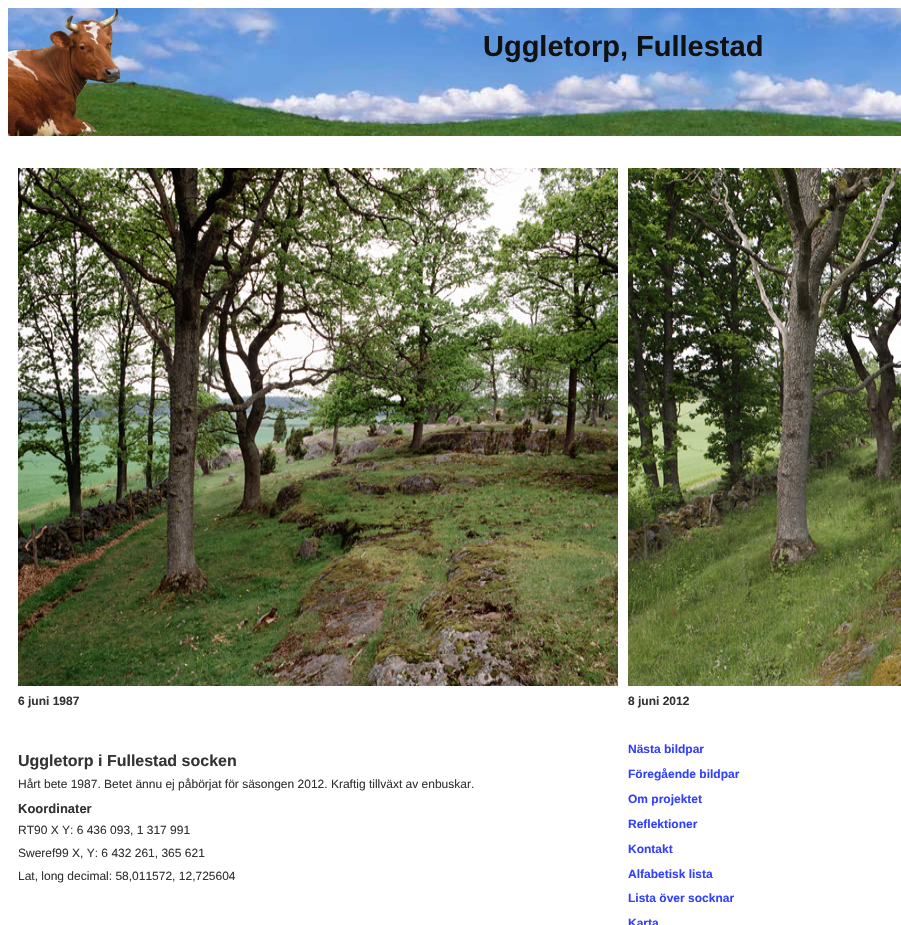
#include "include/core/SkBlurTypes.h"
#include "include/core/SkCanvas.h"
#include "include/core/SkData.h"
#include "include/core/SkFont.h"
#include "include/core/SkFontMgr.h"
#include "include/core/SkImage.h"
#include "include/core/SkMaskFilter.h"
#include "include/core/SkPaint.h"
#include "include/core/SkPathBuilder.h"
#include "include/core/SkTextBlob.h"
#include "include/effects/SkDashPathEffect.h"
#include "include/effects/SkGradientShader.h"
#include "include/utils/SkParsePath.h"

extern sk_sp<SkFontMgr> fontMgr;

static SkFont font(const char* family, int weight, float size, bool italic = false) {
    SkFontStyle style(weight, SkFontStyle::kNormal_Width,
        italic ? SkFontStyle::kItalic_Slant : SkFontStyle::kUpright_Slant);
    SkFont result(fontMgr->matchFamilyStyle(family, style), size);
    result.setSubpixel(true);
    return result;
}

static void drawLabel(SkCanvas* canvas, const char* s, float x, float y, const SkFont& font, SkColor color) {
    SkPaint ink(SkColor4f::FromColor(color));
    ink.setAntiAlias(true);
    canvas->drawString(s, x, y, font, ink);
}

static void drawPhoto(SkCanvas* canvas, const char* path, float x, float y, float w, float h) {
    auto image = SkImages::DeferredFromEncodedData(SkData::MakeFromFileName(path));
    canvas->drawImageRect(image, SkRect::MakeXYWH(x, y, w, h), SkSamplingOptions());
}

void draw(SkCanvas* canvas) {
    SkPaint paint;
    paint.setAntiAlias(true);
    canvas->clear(0xFFFFFFFF);
    drawPhoto(canvas, "assets/img1.png", 8, 8, 893, 128);
    drawPhoto(canvas, "assets/img2.png", 8, 8, 112, 128);
    SkFont font1 = font("Liberation Sans", 700, 29);
    drawLabel(canvas, "Uggletorp, Fullestad", 483, 56, font1, 0xFF111111);
    drawPhoto(canvas, "assets/img3.png", 18, 168, 600, 518);
    SkFont font2 = font("Liberation Sans", 700, 12);
    drawLabel(canvas, "6 juni 1987", 18, 705, font2, 0xFF333333);
    drawPhoto(canvas, "assets/img4.png", 628, 168, 273, 518);
    drawLabel(canvas, "8 juni 2012", 628, 705, font2, 0xFF333333);
    SkFont font3 = font("Liberation Sans", 700, 16);
    drawLabel(canvas, "Uggletorp i Fullestad socken", 18, 766, font3, 0xFF333333);
    SkFont font4 = font("Liberation Sans", 400, 12);
    drawLabel(canvas, "Hårt bete 1987. Betet ännu ej påbörjat för säsongen 2012. Kraftig tillväxt av enbuskar.", 18, 788, font4, 0xFF333333);
    SkFont font5 = font("Liberation Sans", 700, 13);
    drawLabel(canvas, "Koordinater", 18, 813, font5, 0xFF333333);
    drawLabel(canvas, "RT90 X Y: 6 436 093, 1 317 991", 18, 834, font4, 0xFF333333);
    drawLabel(canvas, "Sweref99 X, Y: 6 432 261, 365 621", 18, 857, font4, 0xFF333333);
    drawLabel(canvas, "Lat, long decimal: 58,011572, 12,725604", 18, 880, font4, 0xFF333333);
    drawLabel(canvas, "Nästa bildpar", 628, 753, font2, 0xFF3040FF);
    drawLabel(canvas, "Föregående bildpar", 628, 778, font2, 0xFF3040FF);
    drawLabel(canvas, "Om projektet", 628, 803, font2, 0xFF3040FF);
    drawLabel(canvas, "Reflektioner", 628, 828, font2, 0xFF3040FF);
    drawLabel(canvas, "Kontakt", 628, 853, font2, 0xFF3040FF);
    drawLabel(canvas, "Alfabetisk lista", 628, 878, font2, 0xFF3040FF);
    drawLabel(canvas, "Lista över socknar", 628, 902, font2, 0xFF3040FF);
    drawLabel(canvas, "Karta", 628, 927, font2, 0xFF3040FF);
}
